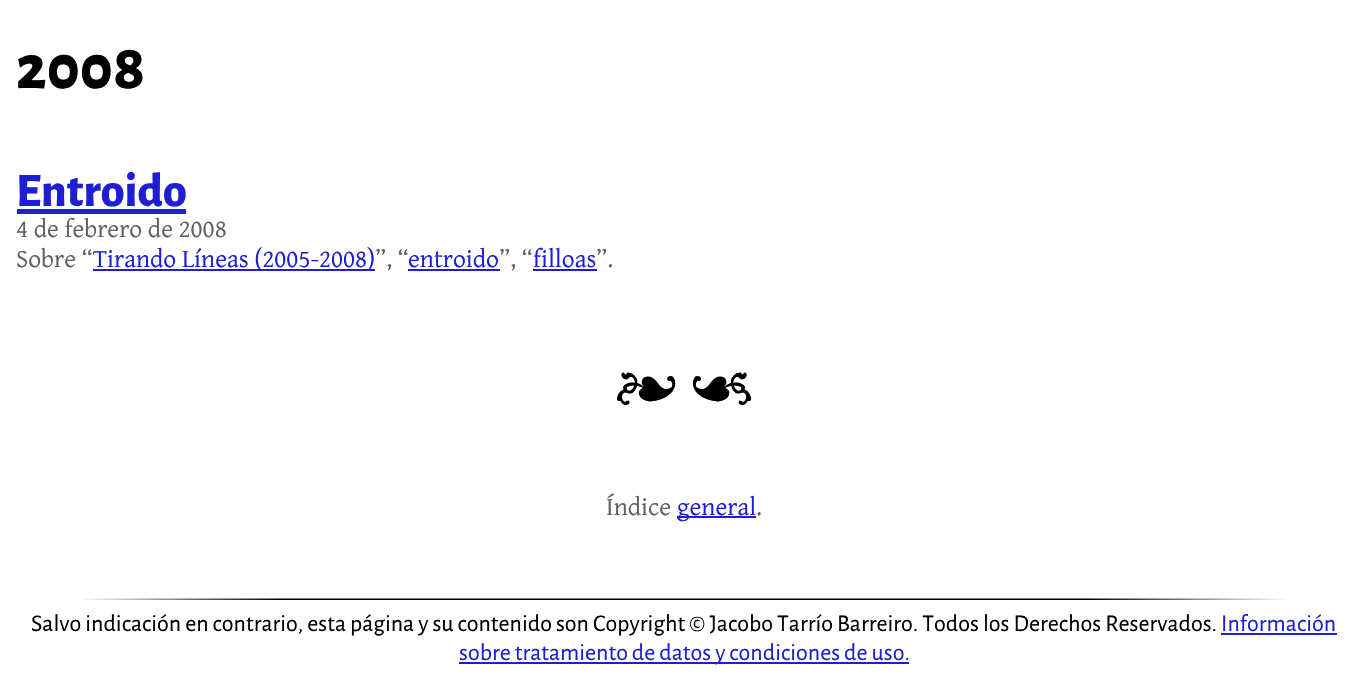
#include "include/core/SkBlurTypes.h"
#include "include/core/SkCanvas.h"
#include "include/core/SkData.h"
#include "include/core/SkFont.h"
#include "include/core/SkFontMgr.h"
#include "include/core/SkImage.h"
#include "include/core/SkMaskFilter.h"
#include "include/core/SkPaint.h"
#include "include/core/SkPathBuilder.h"
#include "include/core/SkTextBlob.h"
#include "include/effects/SkDashPathEffect.h"
#include "include/effects/SkGradientShader.h"
#include "include/utils/SkParsePath.h"

extern sk_sp<SkFontMgr> fontMgr;

static SkFont font(const char* family, int weight, float size, bool italic = false) {
    SkFontStyle style(weight, SkFontStyle::kNormal_Width,
        italic ? SkFontStyle::kItalic_Slant : SkFontStyle::kUpright_Slant);
    SkFont result(fontMgr->matchFamilyStyle(family, style), size);
    result.setSubpixel(true);
    return result;
}

static void drawLabel(SkCanvas* canvas, const char* s, float x, float y, const SkFont& font, SkColor color) {
    SkPaint ink(SkColor4f::FromColor(color));
    ink.setAntiAlias(true);
    canvas->drawString(s, x, y, font, ink);
}

static void drawTracked(SkCanvas* canvas, const char* s, float x, float y, const SkFont& font, const SkPaint& ink, float letter, float word) {
    std::vector<SkGlyphID> glyphs(font.countText(s, strlen(s), SkTextEncoding::kUTF8));
    std::vector<float> xs(glyphs.size());
    font.textToGlyphs(s, strlen(s), SkTextEncoding::kUTF8, glyphs);
    font.getXPos(glyphs, xs, x);
    float extra = 0;
    for (size_t i = 0; i < glyphs.size(); i++) {
        xs[i] += extra;
        extra += letter + word * (glyphs[i] == font.unicharToGlyph(' '));
    }
    canvas->drawTextBlob(SkTextBlob::MakeFromPosHGlyphs(glyphs, xs, y, font), 0, 0, ink);
}

static void fillRect(SkCanvas* canvas, float x, float y, float w, float h, SkColor color) {
    SkPaint ink(SkColor4f::FromColor(color));
    ink.setAntiAlias(true);
    canvas->drawRect(SkRect::MakeXYWH(x, y, w, h), ink);
}

static void drawPhoto(SkCanvas* canvas, const char* path, float x, float y, float w, float h) {
    auto image = SkImages::DeferredFromEncodedData(SkData::MakeFromFileName(path));
    canvas->drawImageRect(image, SkRect::MakeXYWH(x, y, w, h), SkSamplingOptions());
}

void draw(SkCanvas* canvas) {
    SkPaint paint;
    paint.setAntiAlias(true);
    canvas->clear(0xFFFFFFFF);
    SkFont font1 = font("Alegreya Sans", 800, 64);
    drawLabel(canvas, "2008", 16, 88, font1, 0xFF000000);
    SkFont font2 = font("Alegreya Sans", 800, 48);
    drawLabel(canvas, "Entroido", 16, 206, font2, 0xFF1E1ED2);
    fillRect(canvas, 17, 209, 169, 5, 0xFF1E1ED2);
    SkFont font3 = font("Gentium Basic", 400, 25.6f);
    drawLabel(canvas, "4 de febrero de 2008", 16, 237, font3, 0xFF606060);
    drawLabel(canvas, "Sobre “", 16, 267, font3, 0xFF606060);
    fillRect(canvas, 93, 269, 282, 2, 0xFF1E1ED2);
    drawLabel(canvas, "Tirando Líneas (2005-2008)", 93, 267, font3, 0xFF1E1ED2);
    drawLabel(canvas, "”, “", 375, 267, font3, 0xFF606060);
    drawLabel(canvas, "entroido", 408, 267, font3, 0xFF1E1ED2);
    fillRect(canvas, 408, 269, 92, 2, 0xFF1E1ED2);
    drawLabel(canvas, "”, “", 499, 267, font3, 0xFF606060);
    drawLabel(canvas, "filloas", 533, 267, font3, 0xFF1E1ED2);
    fillRect(canvas, 533, 269, 64, 2, 0xFF1E1ED2);
    drawLabel(canvas, "”.", 596, 267, font3, 0xFF606060);
    SkFont font4 = font("EB Garamond", 400, 64);
    paint.setColor(0xFF000000);
    drawTracked(canvas, "❧ ☙", 616, 397, font4, paint, 0, 3);
    drawLabel(canvas, "Índice", 606, 515, font3, 0xFF606060);
    fillRect(canvas, 677, 516, 79, 2, 0xFF1E1ED2);
    drawLabel(canvas, "general", 677, 515, font3, 0xFF1E1ED2);
    drawLabel(canvas, ".", 756, 515, font3, 0xFF606060);
    drawPhoto(canvas, "assets/img1.png", 82, 598, 1205, 2);
    SkFont font5 = font("Alegreya Sans", 400, 24);
    drawLabel(canvas, "Salvo indicación en contrario, esta página y su contenido son Copyright © Jacobo Tarrío Barreiro. Todos los Derechos Reservados.", 31, 631, font5, 0xFF000000);
    drawLabel(canvas, "Información", 1221, 631, font5, 0xFF1E1ED2);
    fillRect(canvas, 1221, 633, 116, 2, 0xFF1E1ED2);
    fillRect(canvas, 459, 662, 450, 2, 0xFF1E1ED2);
    drawLabel(canvas, "sobre tratamiento de datos y condiciones de uso.", 459, 660, font5, 0xFF1E1ED2);
}
